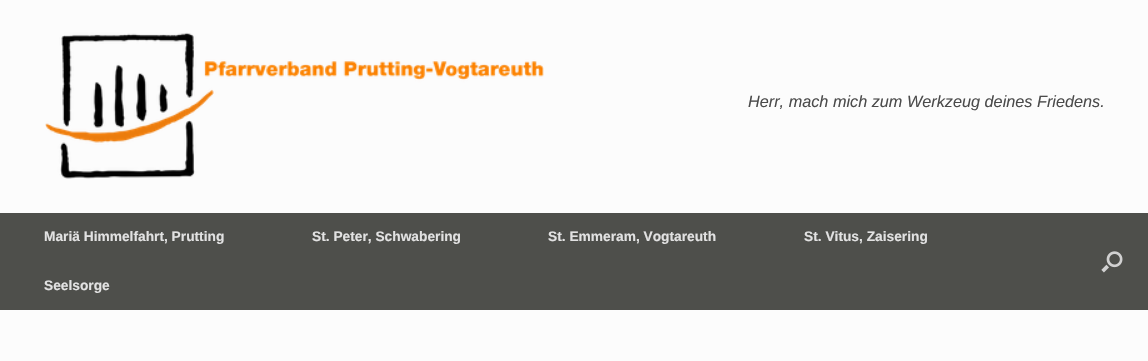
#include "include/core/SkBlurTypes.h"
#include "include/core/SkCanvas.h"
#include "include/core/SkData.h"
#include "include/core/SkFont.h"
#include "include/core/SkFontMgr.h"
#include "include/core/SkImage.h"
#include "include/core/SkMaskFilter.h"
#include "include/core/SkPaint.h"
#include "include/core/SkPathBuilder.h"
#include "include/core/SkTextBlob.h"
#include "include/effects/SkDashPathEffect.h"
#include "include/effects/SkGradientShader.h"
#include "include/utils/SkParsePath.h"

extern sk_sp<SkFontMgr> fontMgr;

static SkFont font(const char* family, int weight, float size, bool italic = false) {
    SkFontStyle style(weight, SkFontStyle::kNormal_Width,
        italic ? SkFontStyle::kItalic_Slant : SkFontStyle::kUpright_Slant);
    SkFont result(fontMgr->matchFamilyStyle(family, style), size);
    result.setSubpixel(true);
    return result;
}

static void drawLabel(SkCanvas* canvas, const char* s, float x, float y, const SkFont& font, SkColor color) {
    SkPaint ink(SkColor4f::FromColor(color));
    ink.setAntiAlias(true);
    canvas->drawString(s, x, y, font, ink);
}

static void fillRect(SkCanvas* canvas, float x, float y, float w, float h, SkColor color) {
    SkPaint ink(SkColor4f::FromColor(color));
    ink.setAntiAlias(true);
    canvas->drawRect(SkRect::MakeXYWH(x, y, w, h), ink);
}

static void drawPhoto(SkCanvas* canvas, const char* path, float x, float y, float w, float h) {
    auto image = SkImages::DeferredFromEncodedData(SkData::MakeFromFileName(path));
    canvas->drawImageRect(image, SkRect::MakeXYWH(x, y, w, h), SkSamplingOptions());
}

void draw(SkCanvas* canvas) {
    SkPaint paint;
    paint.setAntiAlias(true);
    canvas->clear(0xFFFCFCFC);
    drawPhoto(canvas, "assets/img1.png", 45, 32, 499, 147);
    SkFont font1 = font("Liberation Sans", 400, 16.25f, true);
    drawLabel(canvas, "Herr, mach mich zum Werkzeug deines Friedens.", 748, 107, font1, 0xFF4B4B4B);
    fillRect(canvas, 0, 213, 1148, 97, 0xFF4E4F4B);
    SkFont font2 = font("Liberation Sans", 700, 13.75f);
    drawLabel(canvas, "Mariä Himmelfahrt, Prutting", 44, 241, font2, 0xFFE2E2E2);
    drawLabel(canvas, "St. Peter, Schwabering", 312, 241, font2, 0xFFE2E2E2);
    drawLabel(canvas, "St. Emmeram, Vogtareuth", 548, 241, font2, 0xFFE2E2E2);
    drawLabel(canvas, "St. Vitus, Zaisering", 804, 241, font2, 0xFFE2E2E2);
    drawLabel(canvas, "Seelsorge", 44, 290, font2, 0xFFE2E2E2);
    drawPhoto(canvas, "assets/img2.png", 1101, 251, 22, 22);
}
